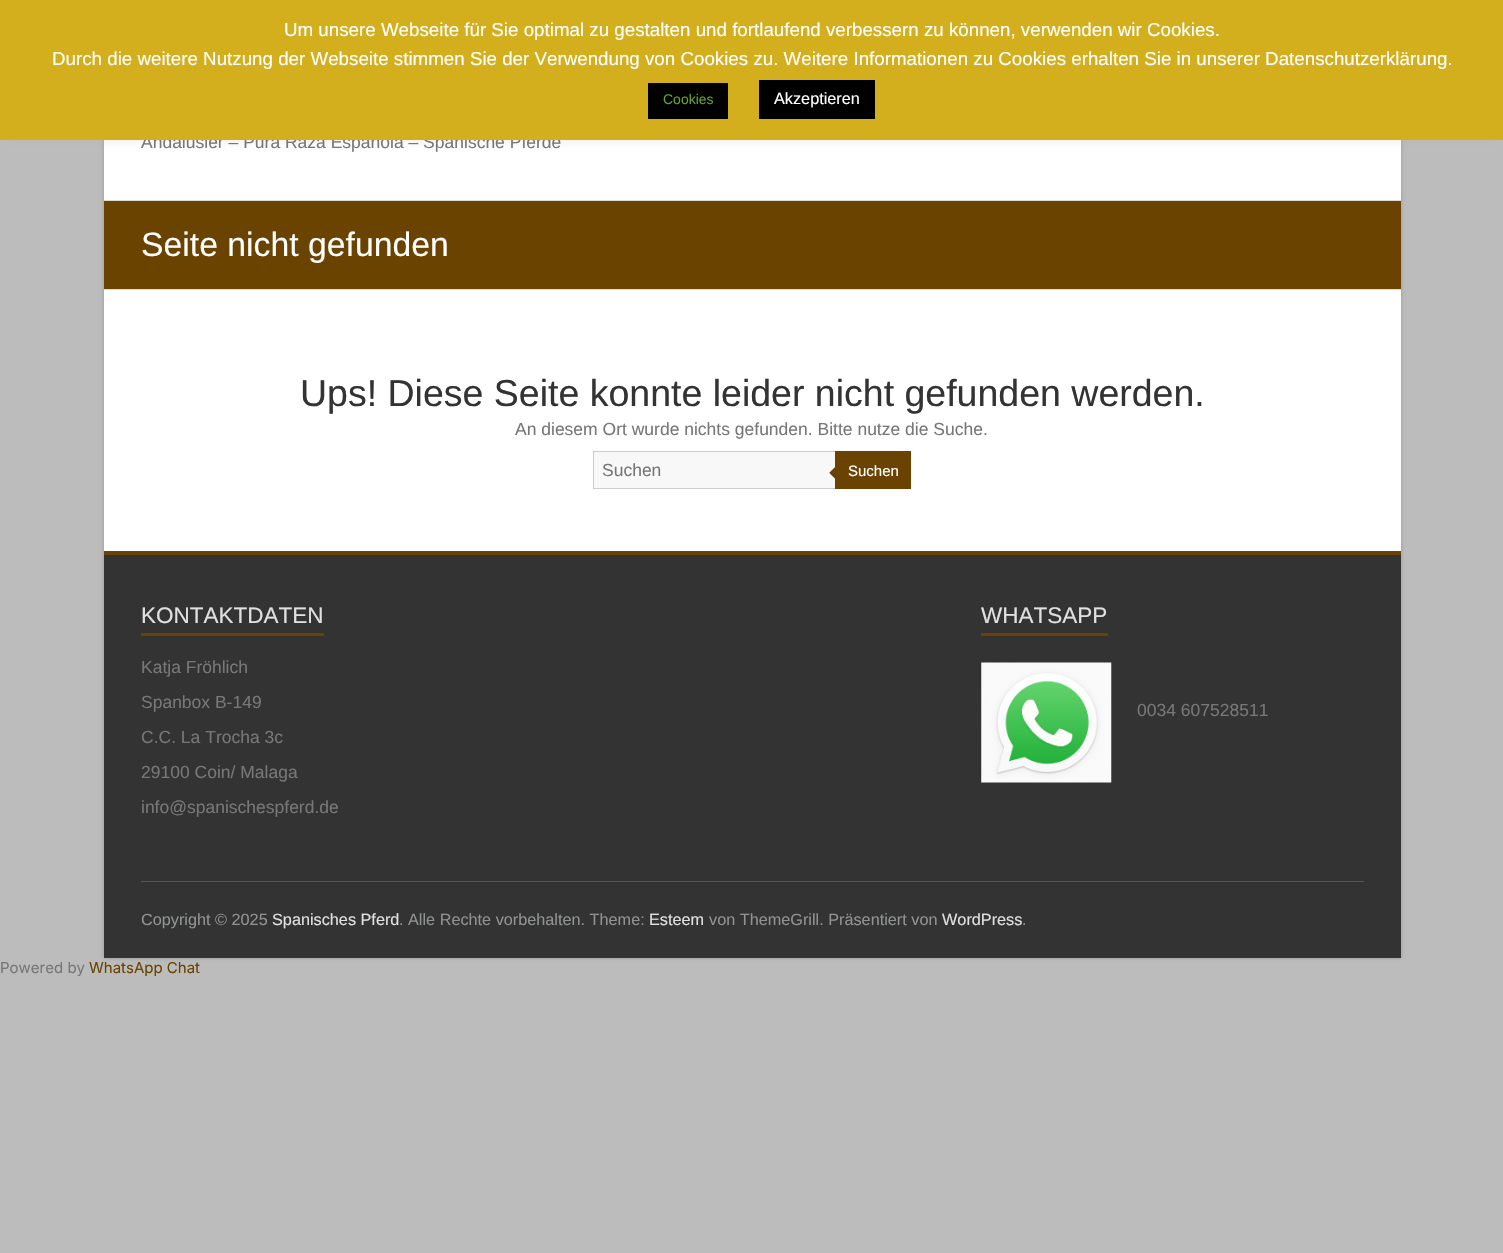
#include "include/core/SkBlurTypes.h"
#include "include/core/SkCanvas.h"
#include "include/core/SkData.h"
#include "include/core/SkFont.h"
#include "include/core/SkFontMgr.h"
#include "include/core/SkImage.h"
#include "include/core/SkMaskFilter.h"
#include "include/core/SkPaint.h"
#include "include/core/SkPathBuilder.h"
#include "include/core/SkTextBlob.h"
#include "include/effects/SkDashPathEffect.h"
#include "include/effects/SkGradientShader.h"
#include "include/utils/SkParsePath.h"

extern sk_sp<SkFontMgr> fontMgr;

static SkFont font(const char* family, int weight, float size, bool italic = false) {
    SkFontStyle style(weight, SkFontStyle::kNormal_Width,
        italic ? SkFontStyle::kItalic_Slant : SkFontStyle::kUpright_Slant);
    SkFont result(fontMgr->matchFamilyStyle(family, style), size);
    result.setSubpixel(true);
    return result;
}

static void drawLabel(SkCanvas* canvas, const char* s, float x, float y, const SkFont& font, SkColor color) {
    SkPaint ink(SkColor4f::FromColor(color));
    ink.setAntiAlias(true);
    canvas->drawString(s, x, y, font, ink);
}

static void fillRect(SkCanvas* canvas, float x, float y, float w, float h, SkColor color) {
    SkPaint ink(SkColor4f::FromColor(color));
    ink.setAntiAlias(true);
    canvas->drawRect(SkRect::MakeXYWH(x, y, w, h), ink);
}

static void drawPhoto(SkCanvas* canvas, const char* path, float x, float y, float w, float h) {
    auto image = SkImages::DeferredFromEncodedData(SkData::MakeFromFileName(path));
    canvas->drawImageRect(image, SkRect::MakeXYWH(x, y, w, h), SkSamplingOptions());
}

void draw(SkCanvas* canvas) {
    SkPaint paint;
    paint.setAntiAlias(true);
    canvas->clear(0xFFBCBCBC);
    paint.setColor(0x33000000);
    paint.setMaskFilter(SkMaskFilter::MakeBlur(kNormal_SkBlurStyle, 2));
    canvas->drawRect(SkRect::MakeXYWH(104, 50, 1297, 908), paint);
    paint.setMaskFilter(nullptr);
    fillRect(canvas, 104, 140, 1297, 411, 0xFFFFFFFF);
    paint.setColor(0x4DACABAB);
    paint.setMaskFilter(SkMaskFilter::MakeBlur(kNormal_SkBlurStyle, 6));
    canvas->drawRect(SkRect::MakeXYWH(0, -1, 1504, 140), paint);
    paint.setMaskFilter(nullptr);
    SkFont font1 = font("Liberation Sans", 400, 17.5f);
    drawLabel(canvas, "Andalusier – Pura Raza Española – Spanische Pferde", 141, 148, font1, 0xFF777777);
    fillRect(canvas, 0, 0, 1503, 140, 0xFFD3AF1D);
    SkFont font2 = font("Liberation Sans", 400, 18.75f);
    drawLabel(canvas, "Um unsere Webseite für Sie optimal zu gestalten und fortlaufend verbessern zu können, verwenden wir Cookies.", 284, 36, font2, 0xFFFFFFFF);
    drawLabel(canvas, "Durch die weitere Nutzung der Webseite stimmen Sie der Verwendung von Cookies zu. Weitere Informationen zu Cookies erhalten Sie in unserer Datenschutzerklärung.", 52, 65, font2, 0xFFFFFFFF);
    fillRect(canvas, 648, 83, 80, 36, 0xFF000000);
    SkFont font3 = font("Liberation Sans", 400, 14);
    drawLabel(canvas, "Cookies", 663, 104, font3, 0xFF62A329);
    fillRect(canvas, 759, 80, 116, 39, 0xFF000000);
    SkFont font4 = font("Liberation Sans", 400, 16.25f);
    drawLabel(canvas, "Akzeptieren", 774, 104, font4, 0xFFFFFFFF);
    fillRect(canvas, 104, 201, 1297, 88, 0xFF6B4300);
    fillRect(canvas, 104, 200, 1297, 1, 0xFFE1D9CC);
    fillRect(canvas, 104, 289, 1297, 1, 0xFFE1D9CC);
    SkFont font5 = font("Liberation Sans", 400, 33.75f);
    drawLabel(canvas, "Seite nicht gefunden", 141, 256, font5, 0xFFFFFFFF);
    SkFont font6 = font("Liberation Sans", 400, 37.5f);
    drawLabel(canvas, "Ups! Diese Seite konnte leider nicht gefunden werden.", 300, 406, font6, 0xFF333333);
    drawLabel(canvas, "An diesem Ort wurde nichts gefunden. Bitte nutze die Suche.", 515, 435, font1, 0xFF777777);
    paint.setColor(0xFFF8F8F8);
    canvas->drawRect(SkRect::MakeXYWH(593.5f, 451.5f, 242, 37), paint);
    paint.setStroke(true);
    paint.setStrokeWidth(1);
    paint.setColor(0xFFCCCCCC);
    canvas->drawRect(SkRect::MakeXYWH(593.5f, 451.5f, 242, 37), paint);
    drawLabel(canvas, "Suchen", 602, 476, font1, 0xFF777777);
    fillRect(canvas, 835, 451, 76, 38, 0xFF6B4300);
    drawPhoto(canvas, "assets/img1.png", 829, 467, 6, 12);
    SkFont font7 = font("Liberation Sans", 400, 15);
    drawLabel(canvas, "Suchen", 848, 476, font7, 0xFFFFFFFF);
    fillRect(canvas, 104, 555, 1297, 403, 0xFF333333);
    fillRect(canvas, 104, 551, 1297, 4, 0xFF6B4300);
    SkFont font8 = font("Liberation Sans", 400, 22.5f);
    drawLabel(canvas, "KONTAKTDATEN", 141, 623, font8, 0xFFE0E0E0);
    fillRect(canvas, 141, 633, 183, 3, 0xFF6B4300);
    drawLabel(canvas, "Katja Fröhlich", 141, 673, font1, 0xFF777777);
    drawLabel(canvas, "Spanbox B-149", 141, 708, font1, 0xFF777777);
    drawLabel(canvas, "C.C. La Trocha 3c", 141, 743, font1, 0xFF777777);
    drawLabel(canvas, "29100 Coin/ Malaga", 141, 778, font1, 0xFF777777);
    drawLabel(canvas, "info@spanischespferd.de", 141, 813, font1, 0xFF777777);
    drawLabel(canvas, "WHATSAPP", 981, 623, font8, 0xFFE0E0E0);
    fillRect(canvas, 981, 633, 127, 3, 0xFF6B4300);
    drawPhoto(canvas, "assets/img2.png", 981, 662, 131, 121);
    drawLabel(canvas, "0034 607528511", 1137, 716, font1, 0xFF777777);
    fillRect(canvas, 141, 881, 1223, 1, 0xFF52585B);
    drawLabel(canvas, "Copyright © 2025", 141, 925, font4, 0xFF909294);
    drawLabel(canvas, "Spanisches Pferd", 272, 925, font4, 0xFFE0E0E0);
    drawLabel(canvas, ". Alle Rechte vorbehalten. Theme:", 399, 925, font4, 0xFF909294);
    drawLabel(canvas, "Esteem", 649, 925, font4, 0xFFE0E0E0);
    drawLabel(canvas, "von ThemeGrill. Präsentiert von", 709, 925, font4, 0xFF909294);
    drawLabel(canvas, "WordPress", 942, 925, font4, 0xFFE0E0E0);
    drawLabel(canvas, ".", 1022, 925, font4, 0xFF909294);
    SkFont font9 = font("Inter", 400, 15);
    drawLabel(canvas, "Powered by", 0, 973, font9, 0xFF777777);
    drawLabel(canvas, "WhatsApp Chat", 89, 973, font9, 0xFF6B4300);
}
